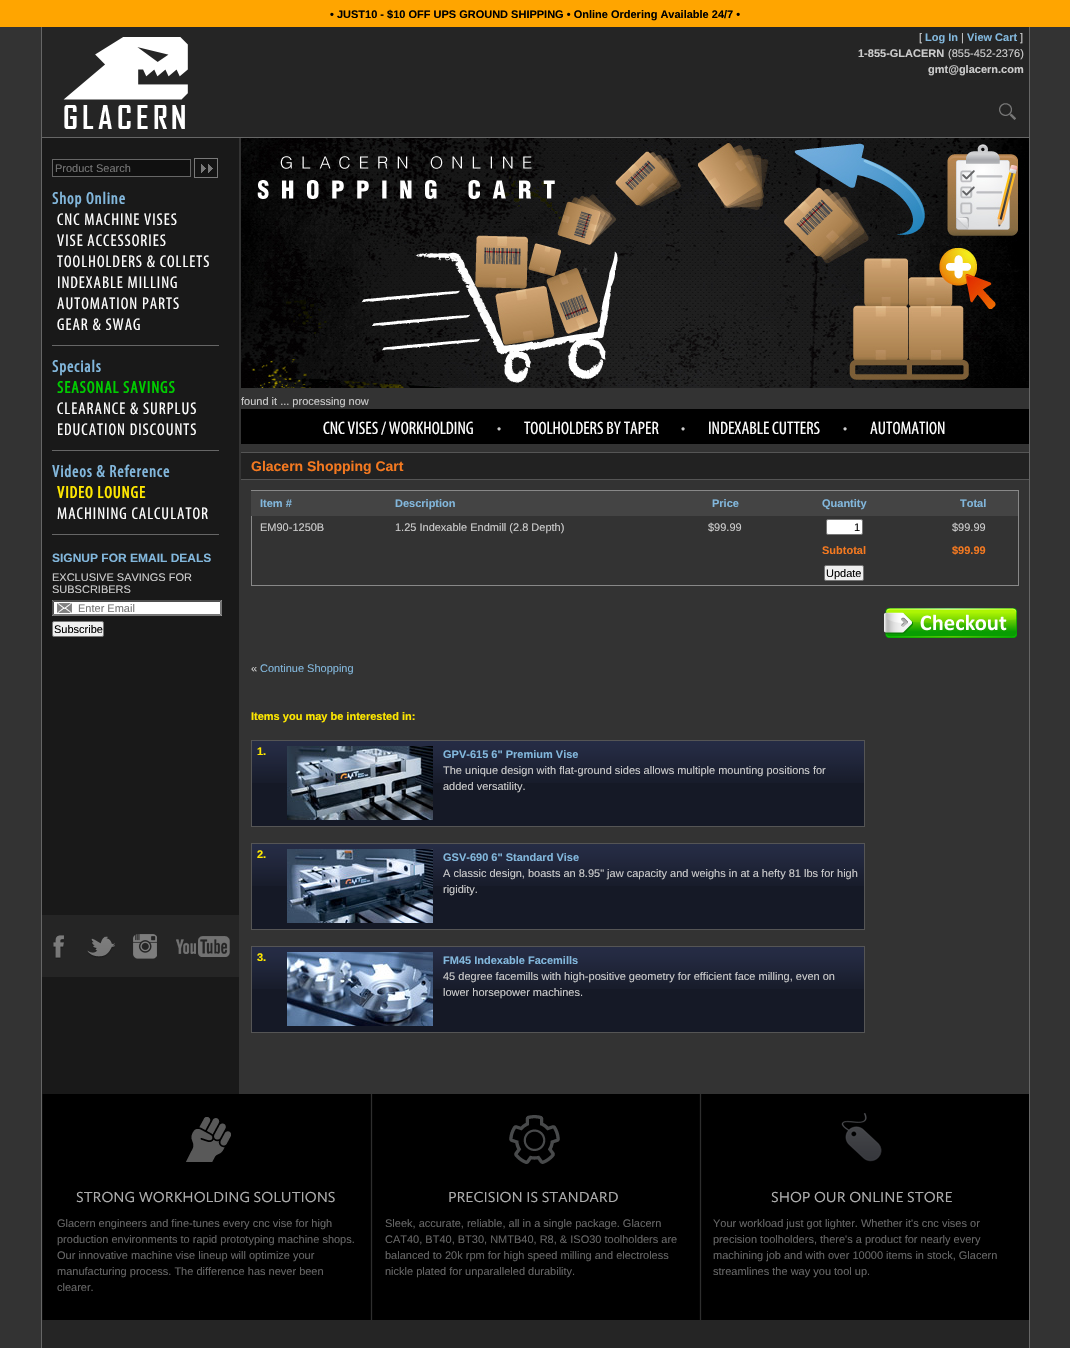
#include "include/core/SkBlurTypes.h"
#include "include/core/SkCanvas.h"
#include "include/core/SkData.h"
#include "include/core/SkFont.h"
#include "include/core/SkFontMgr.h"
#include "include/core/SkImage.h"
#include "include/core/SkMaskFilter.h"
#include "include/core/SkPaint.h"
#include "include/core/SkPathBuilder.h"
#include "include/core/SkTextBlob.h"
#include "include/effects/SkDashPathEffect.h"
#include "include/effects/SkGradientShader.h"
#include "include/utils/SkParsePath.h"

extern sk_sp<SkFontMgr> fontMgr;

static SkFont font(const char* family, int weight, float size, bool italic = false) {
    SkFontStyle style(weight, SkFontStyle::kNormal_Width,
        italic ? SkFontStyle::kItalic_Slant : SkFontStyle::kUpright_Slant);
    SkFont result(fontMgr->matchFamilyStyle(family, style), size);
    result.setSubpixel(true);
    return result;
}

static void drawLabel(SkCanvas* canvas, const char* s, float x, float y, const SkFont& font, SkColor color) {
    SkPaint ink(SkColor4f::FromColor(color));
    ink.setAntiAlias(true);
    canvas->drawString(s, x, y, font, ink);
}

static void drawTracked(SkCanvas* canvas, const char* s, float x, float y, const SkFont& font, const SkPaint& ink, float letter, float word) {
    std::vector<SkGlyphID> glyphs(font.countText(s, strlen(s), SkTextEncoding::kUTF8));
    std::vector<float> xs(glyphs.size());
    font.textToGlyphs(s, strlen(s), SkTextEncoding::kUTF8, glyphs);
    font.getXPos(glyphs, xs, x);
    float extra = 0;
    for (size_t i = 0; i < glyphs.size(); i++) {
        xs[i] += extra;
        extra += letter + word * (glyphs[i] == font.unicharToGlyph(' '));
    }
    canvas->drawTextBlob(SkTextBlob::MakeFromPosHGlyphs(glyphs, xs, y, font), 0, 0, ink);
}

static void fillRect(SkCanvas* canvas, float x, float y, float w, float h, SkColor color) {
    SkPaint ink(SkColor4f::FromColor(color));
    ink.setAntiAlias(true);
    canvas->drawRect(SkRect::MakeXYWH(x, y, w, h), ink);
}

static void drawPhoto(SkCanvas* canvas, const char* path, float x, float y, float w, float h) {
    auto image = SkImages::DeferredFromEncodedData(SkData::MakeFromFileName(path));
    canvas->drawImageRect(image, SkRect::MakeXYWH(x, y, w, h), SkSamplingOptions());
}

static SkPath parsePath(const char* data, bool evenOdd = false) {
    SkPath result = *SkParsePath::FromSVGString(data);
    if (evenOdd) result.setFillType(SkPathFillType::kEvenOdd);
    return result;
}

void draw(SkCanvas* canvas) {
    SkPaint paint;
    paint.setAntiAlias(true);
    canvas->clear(0xFF333333);
    fillRect(canvas, 0, 0, 1070, 27, 0xFFFFA500);
    SkFont font1 = font("Liberation Sans", 700, 11);
    drawLabel(canvas, "• JUST10 - $10 OFF UPS GROUND SHIPPING • Online Ordering Available 24/7 •", 330, 18, font1, 0xFF000000);
    fillRect(canvas, 42, 138, 197, 956, 0xFF191919);
    fillRect(canvas, 1029, 27, 1, 1321, 0xFF666666);
    fillRect(canvas, 41, 27, 1, 1321, 0xFF666666);
    fillRect(canvas, 42, 27, 987, 110, 0xFF252525);
    fillRect(canvas, 42, 137, 987, 1, 0xFF666666);
    drawPhoto(canvas, "assets/img1.png", 63, 37, 125, 92);
    SkFont font2 = font("Liberation Sans", 400, 11);
    drawLabel(canvas, "[", 919, 41, font2, 0xFFCCCCCC);
    drawLabel(canvas, "Log In", 925, 41, font1, 0xFF82B7DC);
    drawLabel(canvas, "|", 961, 41, font2, 0xFFCCCCCC);
    drawLabel(canvas, "View Cart", 967, 41, font1, 0xFF82B7DC);
    drawLabel(canvas, "]", 1020, 41, font2, 0xFFCCCCCC);
    drawLabel(canvas, "1-855-GLACERN", 858, 57, font1, 0xFFCCCCCC);
    drawLabel(canvas, "(855-452-2376)", 948, 57, font2, 0xFFCCCCCC);
    drawLabel(canvas, "gmt@glacern.com", 928, 73, font1, 0xFFCCCCCC);
    drawPhoto(canvas, "assets/img2.png", 999, 103, 17, 17);
    paint.setColor(0xFF101010);
    canvas->drawRect(SkRect::MakeXYWH(52.5f, 159.5f, 138, 17), paint);
    paint.setStroke(true);
    paint.setStrokeWidth(1);
    paint.setColor(0xFF666666);
    canvas->drawRect(SkRect::MakeXYWH(52.5f, 159.5f, 138, 17), paint);
    drawLabel(canvas, "Product Search", 55, 172, font2, 0xFF757575);
    drawPhoto(canvas, "assets/img3.png", 194, 158, 24, 20);
    fillRect(canvas, 52, 345, 167, 1, 0xFF666666);
    SkFont font3 = font("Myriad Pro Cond", 700, 17);
    paint.setStroke(false);
    paint.setColor(0xFF82B7DC);
    drawTracked(canvas, "Shop Online", 52, 204, font3, paint, 1, 0);
    SkFont font4 = font("Myriad Pro Cond", 400, 17);
    paint.setColor(0xFFFFFFFF);
    drawTracked(canvas, "CNC MACHINE VISES", 57, 225, font4, paint, 1, 0);
    drawTracked(canvas, "VISE ACCESSORIES", 57, 246, font4, paint, 1, 0);
    drawTracked(canvas, "TOOLHOLDERS & COLLETS", 57, 267, font4, paint, 1, 0);
    drawTracked(canvas, "INDEXABLE MILLING", 57, 288, font4, paint, 1, 0);
    drawTracked(canvas, "AUTOMATION PARTS", 57, 309, font4, paint, 1, 0);
    drawTracked(canvas, "GEAR & SWAG", 57, 330, font4, paint, 1, 0);
    fillRect(canvas, 52, 450, 167, 1, 0xFF666666);
    paint.setColor(0xFF82B7DC);
    drawTracked(canvas, "Specials", 52, 372, font3, paint, 1, 0);
    paint.setColor(0xFF00CC00);
    drawTracked(canvas, "SEASONAL SAVINGS", 57, 393, font3, paint, 1, 0);
    paint.setColor(0xFFFFFFFF);
    drawTracked(canvas, "CLEARANCE & SURPLUS", 57, 414, font4, paint, 1, 0);
    drawTracked(canvas, "EDUCATION DISCOUNTS", 57, 435, font4, paint, 1, 0);
    fillRect(canvas, 52, 534, 167, 1, 0xFF666666);
    paint.setColor(0xFF82B7DC);
    drawTracked(canvas, "Videos & Reference", 52, 477, font3, paint, 1, 0);
    paint.setColor(0xFFFFE800);
    drawTracked(canvas, "VIDEO LOUNGE", 57, 498, font3, paint, 1, 0);
    paint.setColor(0xFFFFFFFF);
    drawTracked(canvas, "MACHINING CALCULATOR", 57, 519, font4, paint, 1, 0);
    SkFont font5 = font("Liberation Sans", 700, 12);
    drawLabel(canvas, "SIGNUP FOR EMAIL DEALS", 52, 562, font5, 0xFF82B7DC);
    drawLabel(canvas, "EXCLUSIVE SAVINGS FOR", 52, 581, font2, 0xFFCCCCCC);
    drawLabel(canvas, "SUBSCRIBERS", 52, 593, font2, 0xFFCCCCCC);
    fillRect(canvas, 52, 600, 170, 16, 0xFFFFFFFF);
    drawPhoto(canvas, "assets/img4.png", 57, 603, 15, 10);
    paint.setColor(0xFF4F4F4F);
    canvas->drawPath(parsePath("M52 600H222L220 602H54Z"), paint);
    paint.setColor(0xFF767676);
    canvas->drawPath(parsePath("M222 600V616L220 614V602Z"), paint);
    canvas->drawPath(parsePath("M222 616H52L54 614H220Z"), paint);
    paint.setColor(0xFF4F4F4F);
    canvas->drawPath(parsePath("M52 616V600L54 602V614Z"), paint);
    drawLabel(canvas, "Enter Email", 78, 612, font2, 0xFF757575);
    paint.setColor(0xFFEFEFEF);
    canvas->drawRoundRect(SkRect::MakeXYWH(52.5f, 621.5f, 51, 15), 1.5f, 1.5f, paint);
    paint.setStroke(true);
    paint.setColor(0xFF767676);
    canvas->drawRoundRect(SkRect::MakeXYWH(52.5f, 621.5f, 51, 15), 1.5f, 1.5f, paint);
    drawLabel(canvas, "Subscribe", 54, 633, font2, 0xFF000000);
    fillRect(canvas, 42, 915, 197, 62, 0xFF252525);
    drawPhoto(canvas, "assets/img5.png", 53, 935, 11, 24);
    drawPhoto(canvas, "assets/img6.png", 87, 936, 28, 22);
    drawPhoto(canvas, "assets/img7.png", 133, 934, 24, 25);
    drawPhoto(canvas, "assets/img8.png", 176, 936, 54, 21);
    drawPhoto(canvas, "assets/img9.png", 241, 138, 788, 250);
    drawLabel(canvas, "found it ... processing now", 241, 405, font2, 0xFFCCCCCC);
    fillRect(canvas, 241, 409, 788, 35, 0xFF000000);
    SkFont font6 = font("Myriad Pro Cond", 400, 18);
    drawLabel(canvas, "CNC VISES / WORKHOLDING", 323, 434, font6, 0xFFFFFFFF);
    SkFont font7 = font("Myriad Pro Cond", 400, 16);
    drawLabel(canvas, "•", 497, 433, font7, 0xFFCCCCCC);
    drawLabel(canvas, "TOOLHOLDERS BY TAPER", 524, 434, font6, 0xFFFFFFFF);
    drawLabel(canvas, "•", 681, 433, font7, 0xFFCCCCCC);
    drawLabel(canvas, "INDEXABLE CUTTERS", 708, 434, font6, 0xFFFFFFFF);
    drawLabel(canvas, "•", 843, 433, font7, 0xFFCCCCCC);
    drawLabel(canvas, "AUTOMATION", 870, 434, font6, 0xFFFFFFFF);
    fillRect(canvas, 241, 453, 788, 26, 0xFF222222);
    fillRect(canvas, 241, 452, 788, 1, 0xFF555555);
    fillRect(canvas, 241, 479, 788, 1, 0xFF555555);
    SkFont font8 = font("Liberation Sans", 700, 14);
    drawLabel(canvas, "Glacern Shopping Cart", 251, 471, font8, 0xFFF47920);
    fillRect(canvas, 251, 490, 768, 1, 0xFF888888);
    fillRect(canvas, 1018, 490, 1, 96, 0xFF888888);
    fillRect(canvas, 251, 585, 768, 1, 0xFF888888);
    fillRect(canvas, 251, 490, 1, 96, 0xFF888888);
    fillRect(canvas, 251, 491, 767, 25, 0xFF444444);
    drawLabel(canvas, "Item #", 260, 507, font1, 0xFF82B7DC);
    drawLabel(canvas, "Description", 395, 507, font1, 0xFF82B7DC);
    drawLabel(canvas, "Price", 712, 507, font1, 0xFF82B7DC);
    drawLabel(canvas, "Quantity", 822, 507, font1, 0xFF82B7DC);
    drawLabel(canvas, "Total", 960, 507, font1, 0xFF82B7DC);
    drawLabel(canvas, "EM90-1250B", 260, 531, font2, 0xFFCCCCCC);
    drawLabel(canvas, "1.25 Indexable Endmill (2.8 Depth)", 395, 531, font2, 0xFFCCCCCC);
    drawLabel(canvas, "$99.99", 708, 531, font2, 0xFFCCCCCC);
    paint.setStroke(false);
    paint.setColor(0xFFFFFFFF);
    canvas->drawRoundRect(SkRect::MakeXYWH(826.5f, 519.5f, 36, 15), 1.5f, 1.5f, paint);
    paint.setStroke(true);
    paint.setColor(0xFF767676);
    canvas->drawRoundRect(SkRect::MakeXYWH(826.5f, 519.5f, 36, 15), 1.5f, 1.5f, paint);
    drawLabel(canvas, "1", 854, 531, font2, 0xFF000000);
    drawLabel(canvas, "$99.99", 952, 531, font2, 0xFFCCCCCC);
    drawLabel(canvas, "Subtotal", 822, 554, font1, 0xFFF47920);
    drawLabel(canvas, "$99.99", 952, 554, font1, 0xFFF47920);
    paint.setStroke(false);
    paint.setColor(0xFFEFEFEF);
    canvas->drawRoundRect(SkRect::MakeXYWH(824.5f, 565.5f, 39, 15), 1.5f, 1.5f, paint);
    paint.setStroke(true);
    paint.setColor(0xFF767676);
    canvas->drawRoundRect(SkRect::MakeXYWH(824.5f, 565.5f, 39, 15), 1.5f, 1.5f, paint);
    drawLabel(canvas, "Update", 826, 577, font2, 0xFF000000);
    drawPhoto(canvas, "assets/img10.png", 884, 608, 133, 30);
    drawLabel(canvas, "«", 251, 672, font2, 0xFFCCCCCC);
    drawLabel(canvas, "Continue Shopping", 260, 672, font2, 0xFF82B7DC);
    drawLabel(canvas, "Items you may be interested in:", 251, 720, font1, 0xFFFFE800);
    fillRect(canvas, 251, 740, 614, 1, 0xFF555555);
    fillRect(canvas, 864, 740, 1, 87, 0xFF555555);
    fillRect(canvas, 251, 826, 614, 1, 0xFF555555);
    fillRect(canvas, 251, 740, 1, 87, 0xFF555555);
    fillRect(canvas, 252, 783, 612, 43, 0xFF151926);
    drawPhoto(canvas, "assets/img11.png", 252, 741, 30, 42);
    drawLabel(canvas, "1.", 257, 755, font1, 0xFFFFE800);
    drawPhoto(canvas, "assets/img12.png", 282, 741, 156, 42);
    drawPhoto(canvas, "assets/img13.png", 287, 746, 146, 74);
    drawPhoto(canvas, "assets/img14.png", 438, 741, 426, 42);
    drawLabel(canvas, "GPV-615 6\" Premium Vise", 443, 758, font1, 0xFF82B7DC);
    drawLabel(canvas, "The unique design with flat-ground sides allows multiple mounting positions for", 443, 774, font2, 0xFFCCCCCC);
    drawLabel(canvas, "added versatility.", 443, 790, font2, 0xFFCCCCCC);
    fillRect(canvas, 251, 843, 614, 1, 0xFF555555);
    fillRect(canvas, 864, 843, 1, 87, 0xFF555555);
    fillRect(canvas, 251, 929, 614, 1, 0xFF555555);
    fillRect(canvas, 251, 843, 1, 87, 0xFF555555);
    fillRect(canvas, 252, 886, 612, 43, 0xFF151926);
    drawPhoto(canvas, "assets/img11.png", 252, 844, 30, 42);
    drawLabel(canvas, "2.", 257, 858, font1, 0xFFFFE800);
    drawPhoto(canvas, "assets/img12.png", 282, 844, 156, 42);
    drawPhoto(canvas, "assets/img15.png", 287, 849, 146, 74);
    drawPhoto(canvas, "assets/img14.png", 438, 844, 426, 42);
    drawLabel(canvas, "GSV-690 6\" Standard Vise", 443, 861, font1, 0xFF82B7DC);
    drawLabel(canvas, "A classic design, boasts an 8.95\" jaw capacity and weighs in at a hefty 81 lbs for high", 443, 877, font2, 0xFFCCCCCC);
    drawLabel(canvas, "rigidity.", 443, 893, font2, 0xFFCCCCCC);
    fillRect(canvas, 251, 946, 614, 1, 0xFF555555);
    fillRect(canvas, 864, 946, 1, 87, 0xFF555555);
    fillRect(canvas, 251, 1032, 614, 1, 0xFF555555);
    fillRect(canvas, 251, 946, 1, 87, 0xFF555555);
    fillRect(canvas, 252, 989, 612, 43, 0xFF151926);
    drawPhoto(canvas, "assets/img11.png", 252, 947, 30, 42);
    drawLabel(canvas, "3.", 257, 961, font1, 0xFFFFE800);
    drawPhoto(canvas, "assets/img12.png", 282, 947, 156, 42);
    drawPhoto(canvas, "assets/img16.png", 287, 952, 146, 74);
    drawPhoto(canvas, "assets/img14.png", 438, 947, 426, 42);
    drawLabel(canvas, "FM45 Indexable Facemills", 443, 964, font1, 0xFF82B7DC);
    drawLabel(canvas, "45 degree facemills with high-positive geometry for efficient face milling, even on", 443, 980, font2, 0xFFCCCCCC);
    drawLabel(canvas, "lower horsepower machines.", 443, 996, font2, 0xFFCCCCCC);
    fillRect(canvas, 702, 1094, 327, 226, 0xFF000000);
    drawPhoto(canvas, "assets/img17.png", 42, 1094, 660, 226);
    drawPhoto(canvas, "assets/img18.png", 186, 1117, 45, 45);
    SkFont font9 = font("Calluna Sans", 400, 15);
    drawLabel(canvas, "STRONG WORKHOLDING SOLUTIONS", 76, 1202, font9, 0xFFADADAD);
    drawLabel(canvas, "Glacern engineers and fine-tunes every cnc vise for high", 57, 1227, font2, 0xFF666666);
    drawLabel(canvas, "production environments to rapid prototyping machine shops.", 57, 1243, font2, 0xFF666666);
    drawLabel(canvas, "Our innovative machine vise lineup will optimize your", 57, 1259, font2, 0xFF666666);
    drawLabel(canvas, "manufacturing process. The difference has never been", 57, 1275, font2, 0xFF666666);
    drawLabel(canvas, "clearer.", 57, 1291, font2, 0xFF666666);
    drawPhoto(canvas, "assets/img19.png", 509, 1115, 51, 49);
    drawLabel(canvas, "PRECISION IS STANDARD", 448, 1202, font9, 0xFFADADAD);
    drawLabel(canvas, "Sleek, accurate, reliable, all in a single package. Glacern", 385, 1227, font2, 0xFF666666);
    drawLabel(canvas, "CAT40, BT40, BT30, NMTB40, R8, & ISO30 toolholders are", 385, 1243, font2, 0xFF666666);
    drawLabel(canvas, "balanced to 20k rpm for high speed milling and electroless", 385, 1259, font2, 0xFF666666);
    drawLabel(canvas, "nickle plated for unparalleled durability.", 385, 1275, font2, 0xFF666666);
    drawPhoto(canvas, "assets/img20.png", 841, 1113, 41, 49);
    drawLabel(canvas, "SHOP OUR ONLINE STORE", 771, 1202, font9, 0xFFADADAD);
    drawLabel(canvas, "Your workload just got lighter. Whether it's cnc vises or", 713, 1227, font2, 0xFF666666);
    drawLabel(canvas, "precision toolholders, there's a product for nearly every", 713, 1243, font2, 0xFF666666);
    drawLabel(canvas, "machining job and with over 10000 items in stock, Glacern", 713, 1259, font2, 0xFF666666);
    drawLabel(canvas, "streamlines the way you tool up.", 713, 1275, font2, 0xFF666666);
    fillRect(canvas, 42, 1320, 987, 28, 0xFF252525);
}
